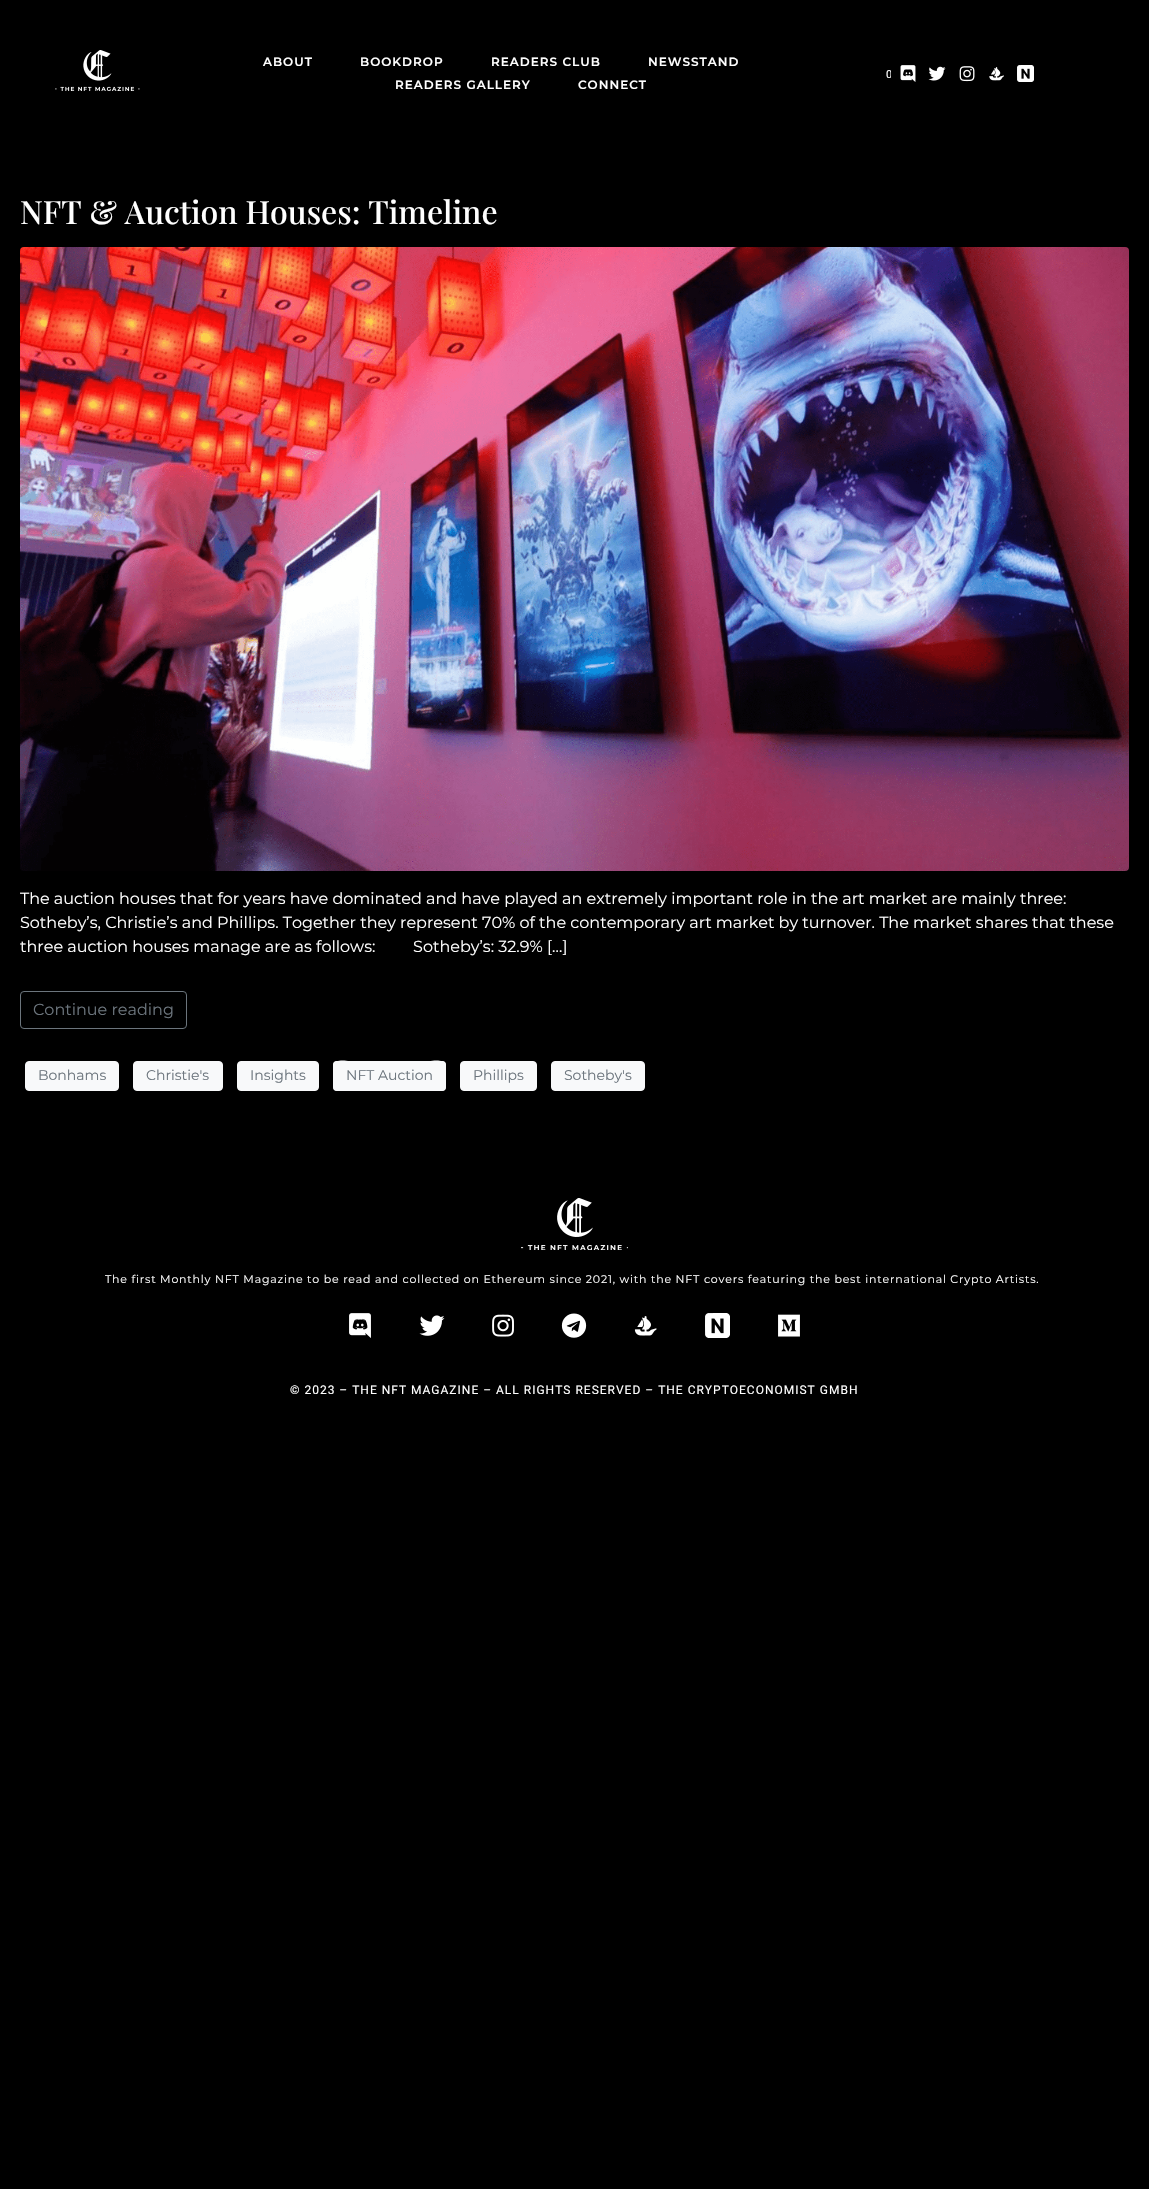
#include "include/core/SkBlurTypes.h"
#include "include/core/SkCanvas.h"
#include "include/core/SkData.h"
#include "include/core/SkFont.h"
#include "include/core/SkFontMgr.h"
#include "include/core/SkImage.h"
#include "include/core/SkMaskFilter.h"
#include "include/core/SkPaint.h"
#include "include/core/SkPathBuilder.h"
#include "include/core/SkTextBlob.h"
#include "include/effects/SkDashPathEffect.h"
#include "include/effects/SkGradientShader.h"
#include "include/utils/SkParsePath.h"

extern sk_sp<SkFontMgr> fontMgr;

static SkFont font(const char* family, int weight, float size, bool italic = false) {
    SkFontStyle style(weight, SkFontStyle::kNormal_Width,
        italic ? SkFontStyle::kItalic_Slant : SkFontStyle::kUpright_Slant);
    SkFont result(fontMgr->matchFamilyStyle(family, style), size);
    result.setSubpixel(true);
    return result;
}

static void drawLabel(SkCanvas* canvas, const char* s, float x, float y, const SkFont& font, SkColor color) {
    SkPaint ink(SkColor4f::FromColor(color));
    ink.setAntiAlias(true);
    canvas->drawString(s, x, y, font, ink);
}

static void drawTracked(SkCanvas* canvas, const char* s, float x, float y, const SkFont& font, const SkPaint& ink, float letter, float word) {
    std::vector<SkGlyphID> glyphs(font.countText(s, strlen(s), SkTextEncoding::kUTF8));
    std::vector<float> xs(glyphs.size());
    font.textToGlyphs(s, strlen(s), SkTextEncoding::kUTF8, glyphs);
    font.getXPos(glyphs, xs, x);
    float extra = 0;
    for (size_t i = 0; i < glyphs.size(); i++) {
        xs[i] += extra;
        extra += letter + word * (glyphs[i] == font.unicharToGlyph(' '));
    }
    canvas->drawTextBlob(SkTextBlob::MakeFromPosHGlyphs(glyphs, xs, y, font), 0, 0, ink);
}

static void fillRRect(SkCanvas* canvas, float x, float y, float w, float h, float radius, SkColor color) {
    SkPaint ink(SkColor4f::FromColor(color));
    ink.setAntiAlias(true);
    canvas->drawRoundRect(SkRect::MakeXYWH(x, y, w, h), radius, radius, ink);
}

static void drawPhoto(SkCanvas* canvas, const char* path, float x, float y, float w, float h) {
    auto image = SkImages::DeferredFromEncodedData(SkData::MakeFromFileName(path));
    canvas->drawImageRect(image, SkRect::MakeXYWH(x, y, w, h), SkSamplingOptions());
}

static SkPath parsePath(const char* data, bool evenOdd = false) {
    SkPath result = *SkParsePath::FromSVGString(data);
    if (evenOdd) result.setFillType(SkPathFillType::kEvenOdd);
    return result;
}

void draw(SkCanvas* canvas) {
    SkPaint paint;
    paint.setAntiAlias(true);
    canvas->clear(0xFF000000);
    drawPhoto(canvas, "assets/img1.png", 55, 50, 85, 41);
    SkFont font1 = font("Montserrat", 600, 12);
    paint.setColor(0xFFFFFFFF);
    drawTracked(canvas, "ABOUT", 263, 66, font1, paint, 1, 0);
    drawTracked(canvas, "BOOKDROP", 360, 66, font1, paint, 1, 0);
    drawTracked(canvas, "READERS CLUB", 491, 66, font1, paint, 1, 0);
    drawTracked(canvas, "NEWSSTAND", 648, 66, font1, paint, 1, 0);
    drawTracked(canvas, "READERS GALLERY", 395, 89, font1, paint, 1, 0);
    drawTracked(canvas, "CONNECT", 578, 89, font1, paint, 1, 0);
    SkFont font2 = font("Roboto", 400, 11);
    drawLabel(canvas, "0", 886, 78, font2, 0xFFFFFFFF);
    fillRRect(canvas, 891, 56, 34, 34, 3, 0xFF000000);
    drawPhoto(canvas, "assets/img2.png", 900, 65, 16, 17);
    drawPhoto(canvas, "assets/img3.png", 928, 66, 18, 15);
    drawPhoto(canvas, "assets/img4.png", 959, 66, 16, 16);
    drawPhoto(canvas, "assets/img5.png", 989, 67, 15, 14);
    drawPhoto(canvas, "assets/img6.png", 1017, 65, 17, 17);
    SkFont font3 = font("Playfair Display", 500, 32);
    drawLabel(canvas, "NFT & Auction Houses: Timeline", 20, 224, font3, 0xFFFFFFFF);
    drawPhoto(canvas, "assets/img7.png", 20, 247, 1109, 624);
    SkFont font4 = font("Montserrat", 400, 16);
    drawLabel(canvas, "The auction houses that for years have dominated and have played an extremely important role in the art market are mainly three:", 20, 904, font4, 0xFFFFFFFF);
    drawLabel(canvas, "Sotheby’s, Christie’s and Phillips. Together they represent 70% of the contemporary art market by turnover. The market shares that these", 20, 928, font4, 0xFFFFFFFF);
    drawLabel(canvas, "three auction houses manage are as follows:         Sotheby’s: 32.9% […]", 20, 952, font4, 0xFFFFFFFF);
    paint.setStroke(true);
    paint.setStrokeWidth(1);
    paint.setColor(0xFF6C757D);
    canvas->drawRoundRect(SkRect::MakeXYWH(20.5f, 991.5f, 166, 37), 3.5f, 3.5f, paint);
    drawLabel(canvas, "Continue reading", 33, 1015, font4, 0xFF6C757D);
    paint.setStroke(false);
    paint.setColor(0xFFF8F9FA);
    canvas->drawRoundRect(SkRect::MakeXYWH(25.5f, 1061.5f, 93, 29), 3.5f, 3.5f, paint);
    paint.setStroke(true);
    canvas->drawRoundRect(SkRect::MakeXYWH(25.5f, 1061.5f, 93, 29), 3.5f, 3.5f, paint);
    SkFont font5 = font("Montserrat", 400, 14);
    drawLabel(canvas, "Bonhams", 38, 1080, font5, 0xFF6C757D);
    paint.setStroke(false);
    canvas->drawRoundRect(SkRect::MakeXYWH(133.5f, 1061.5f, 89, 29), 3.5f, 3.5f, paint);
    paint.setStroke(true);
    canvas->drawRoundRect(SkRect::MakeXYWH(133.5f, 1061.5f, 89, 29), 3.5f, 3.5f, paint);
    drawLabel(canvas, "Christie's", 146, 1080, font5, 0xFF6C757D);
    paint.setStroke(false);
    canvas->drawRoundRect(SkRect::MakeXYWH(237.5f, 1061.5f, 81, 29), 3.5f, 3.5f, paint);
    paint.setStroke(true);
    canvas->drawRoundRect(SkRect::MakeXYWH(237.5f, 1061.5f, 81, 29), 3.5f, 3.5f, paint);
    drawLabel(canvas, "Insights", 250, 1080, font5, 0xFF6C757D);
    fillRRect(canvas, 333, 1061, 113, 30, 4, 0xFFF8F9FA);
    paint.setStroke(false);
    paint.setColor(0xFFF9FAFB);
    canvas->drawPath(parsePath("M337 1063H442C444 1063 445 1064 445 1066C445 1057 427 1062 424 1062H354C352 1062 334 1057 334 1066C334 1064 335 1063 337 1063Z"), paint);
    paint.setStroke(true);
    paint.setColor(0xFFF8F9FA);
    canvas->drawRoundRect(SkRect::MakeXYWH(333.5f, 1061.5f, 112, 29), 3.5f, 3.5f, paint);
    drawLabel(canvas, "NFT Auction", 346, 1080, font5, 0xFF6C757D);
    paint.setStroke(false);
    canvas->drawRoundRect(SkRect::MakeXYWH(460.5f, 1061.5f, 76, 29), 3.5f, 3.5f, paint);
    paint.setStroke(true);
    canvas->drawRoundRect(SkRect::MakeXYWH(460.5f, 1061.5f, 76, 29), 3.5f, 3.5f, paint);
    drawLabel(canvas, "Phillips", 473, 1080, font5, 0xFF6C757D);
    paint.setStroke(false);
    canvas->drawRoundRect(SkRect::MakeXYWH(551.5f, 1061.5f, 93, 29), 3.5f, 3.5f, paint);
    paint.setStroke(true);
    canvas->drawRoundRect(SkRect::MakeXYWH(551.5f, 1061.5f, 93, 29), 3.5f, 3.5f, paint);
    drawLabel(canvas, "Sotheby's", 564, 1080, font5, 0xFF6C757D);
    drawPhoto(canvas, "assets/img8.png", 521, 1198, 107, 52);
    SkFont font6 = font("Montserrat", 400, 11);
    paint.setStroke(false);
    paint.setColor(0xFFFFFFFF);
    drawTracked(canvas, "The first Monthly NFT Magazine to be read and collected on Ethereum since 2021, with the NFT covers featuring the best international Crypto Artists.", 105, 1283, font6, paint, 0.8f, 0);
    drawPhoto(canvas, "assets/img9.png", 349, 1313, 22, 25);
    drawPhoto(canvas, "assets/img10.png", 419, 1315, 26, 21);
    drawPhoto(canvas, "assets/img11.png", 492, 1314, 22, 23);
    drawPhoto(canvas, "assets/img12.png", 561, 1313, 26, 25);
    drawPhoto(canvas, "assets/img13.png", 634, 1316, 23, 20);
    drawPhoto(canvas, "assets/img14.png", 705, 1313, 25, 25);
    drawPhoto(canvas, "assets/img15.png", 778, 1314, 22, 23);
    SkFont font7 = font("Roboto", 400, 12);
    drawTracked(canvas, "© 2023 – THE NFT MAGAZINE – ALL RIGHTS RESERVED – THE CRYPTOECONOMIST GMBH", 290, 1394, font7, paint, 1, 0);
}
